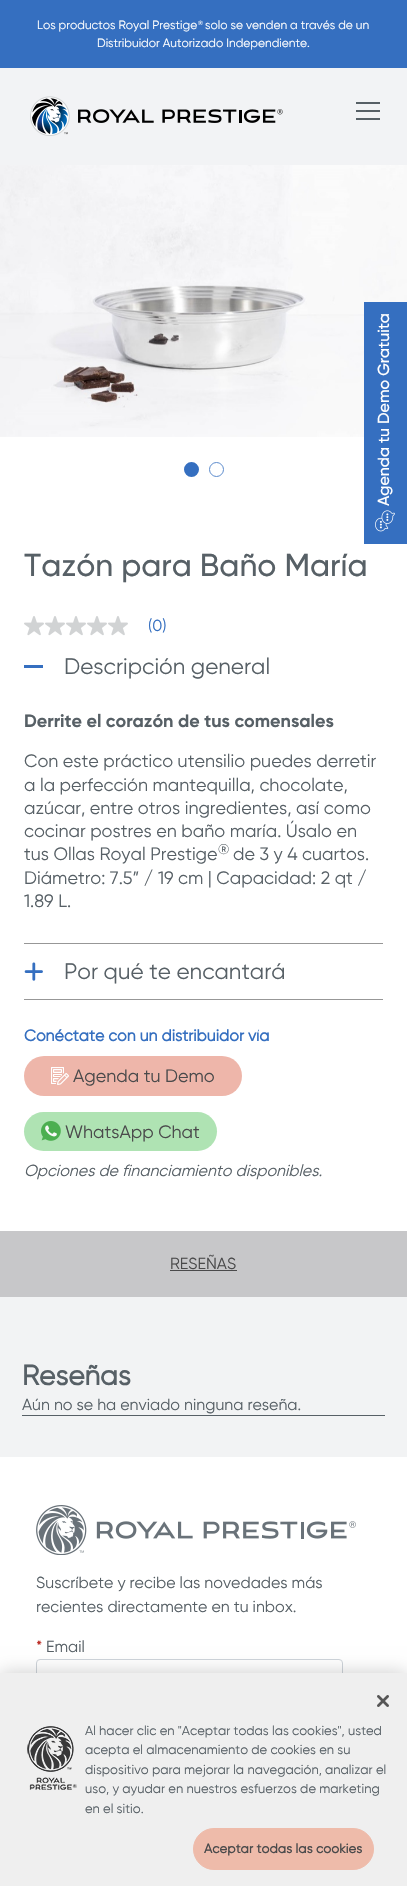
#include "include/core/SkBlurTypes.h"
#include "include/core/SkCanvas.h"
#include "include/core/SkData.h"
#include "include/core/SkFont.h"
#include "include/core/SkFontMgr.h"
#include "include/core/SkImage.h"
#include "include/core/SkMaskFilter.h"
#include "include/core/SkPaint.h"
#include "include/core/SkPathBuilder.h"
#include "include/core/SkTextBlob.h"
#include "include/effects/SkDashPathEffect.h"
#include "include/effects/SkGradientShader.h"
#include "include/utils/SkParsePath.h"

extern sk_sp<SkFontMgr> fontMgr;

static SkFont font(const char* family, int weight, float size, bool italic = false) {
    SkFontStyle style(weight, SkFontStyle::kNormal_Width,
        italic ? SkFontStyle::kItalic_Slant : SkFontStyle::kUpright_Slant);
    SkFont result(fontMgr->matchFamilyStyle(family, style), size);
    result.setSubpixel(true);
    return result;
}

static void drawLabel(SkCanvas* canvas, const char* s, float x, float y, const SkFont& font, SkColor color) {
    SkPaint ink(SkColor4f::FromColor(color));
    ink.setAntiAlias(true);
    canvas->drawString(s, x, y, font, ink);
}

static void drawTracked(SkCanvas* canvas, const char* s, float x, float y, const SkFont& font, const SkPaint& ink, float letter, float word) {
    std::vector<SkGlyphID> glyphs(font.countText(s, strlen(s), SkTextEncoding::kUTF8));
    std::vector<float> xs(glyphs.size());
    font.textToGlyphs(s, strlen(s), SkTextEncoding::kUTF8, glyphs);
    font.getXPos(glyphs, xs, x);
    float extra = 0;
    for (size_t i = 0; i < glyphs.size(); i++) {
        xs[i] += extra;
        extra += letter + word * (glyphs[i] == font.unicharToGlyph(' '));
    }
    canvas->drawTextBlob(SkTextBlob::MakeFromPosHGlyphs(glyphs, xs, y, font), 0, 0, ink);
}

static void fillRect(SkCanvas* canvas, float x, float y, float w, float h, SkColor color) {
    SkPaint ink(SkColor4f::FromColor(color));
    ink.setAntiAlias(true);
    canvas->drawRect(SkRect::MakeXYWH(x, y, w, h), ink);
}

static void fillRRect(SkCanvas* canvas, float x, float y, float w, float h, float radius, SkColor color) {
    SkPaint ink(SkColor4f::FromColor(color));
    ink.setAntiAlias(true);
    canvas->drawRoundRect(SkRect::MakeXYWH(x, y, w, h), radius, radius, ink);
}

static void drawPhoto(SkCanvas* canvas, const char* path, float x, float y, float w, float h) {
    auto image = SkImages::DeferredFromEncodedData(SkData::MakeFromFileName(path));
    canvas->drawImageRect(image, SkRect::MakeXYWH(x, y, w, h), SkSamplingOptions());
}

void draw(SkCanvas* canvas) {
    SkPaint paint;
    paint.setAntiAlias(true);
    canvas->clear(0xFFFFFFFF);
    fillRect(canvas, 0, 68, 407, 97, 0xFFF2F3F5);
    fillRect(canvas, 0, 0, 407, 68, 0xFF356FC0);
    SkFont font1 = font("Gilroy", 400, 12);
    drawLabel(canvas, "Los productos Royal Prestige", 37, 29, font1, 0xFFFFFFFF);
    SkFont font2 = font("Gilroy", 400, 6);
    drawLabel(canvas, "®", 198, 25, font2, 0xFFFFFFFF);
    drawLabel(canvas, "solo se venden a través de un", 205, 29, font1, 0xFFFFFFFF);
    drawLabel(canvas, "Distribuidor Autorizado Independiente.", 97, 47, font1, 0xFFFFFFFF);
    drawPhoto(canvas, "assets/img1.png", 30, 96, 253, 40);
    fillRect(canvas, 356, 102, 24, 2, 0xFF576066);
    fillRect(canvas, 356, 110, 24, 2, 0xFF576066);
    fillRect(canvas, 356, 118, 24, 2, 0xFF576066);
    drawPhoto(canvas, "assets/img3.png", 0, 165, 407, 272);
    fillRect(canvas, 364, 302, 43, 242, 0xFF356FC0);
    SkFont font3 = font("Gilroy", 500, 16);
    canvas->save();
    canvas->rotate(-90, 389, 506);
    drawLabel(canvas, "Agenda tu Demo Gratuita", 389, 506, font3, 0xFFFFFFFF);
    canvas->restore();
    drawPhoto(canvas, "assets/img2.png", 375, 510, 20, 22);
    paint.setColor(0xFF356FC0);
    canvas->drawCircle(191.5f, 469.5f, 6.5f, paint);
    paint.setStroke(true);
    paint.setStrokeWidth(2);
    canvas->drawCircle(191.5f, 469.5f, 6.5f, paint);
    paint.setStrokeWidth(1);
    paint.setColor(0xFF5D8CCD);
    canvas->drawCircle(216.5f, 469.5f, 7, paint);
    SkFont font4 = font("Gilroy", 500, 31.75f);
    drawLabel(canvas, "Tazón para Baño María", 24, 576, font4, 0xFF576066);
    drawPhoto(canvas, "assets/img4.png", 24, 616, 20, 20);
    drawPhoto(canvas, "assets/img4.png", 45, 616, 20, 20);
    drawPhoto(canvas, "assets/img4.png", 66, 616, 20, 20);
    drawPhoto(canvas, "assets/img4.png", 87, 616, 20, 20);
    drawPhoto(canvas, "assets/img4.png", 108, 616, 20, 20);
    SkFont font5 = font("Gilroy", 400, 16);
    drawLabel(canvas, "(0)", 148, 631, font5, 0xFF356FC0);
    fillRect(canvas, 24, 943, 359, 1, 0xFF979797);
    fillRect(canvas, 24, 665, 19, 3, 0xFF356FC0);
    SkFont font6 = font("Gilroy", 400, 22.5f);
    drawLabel(canvas, "Descripción general", 64, 674, font6, 0xFF576066);
    SkFont font7 = font("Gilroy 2", 700, 18);
    drawLabel(canvas, "Derrite el corazón de tus comensales", 24, 727, font7, 0xFF576066);
    SkFont font8 = font("Gilroy", 400, 18);
    drawLabel(canvas, "Con este práctico utensilio puedes derretir", 24, 767, font8, 0xFF576066);
    drawLabel(canvas, "a la perfección mantequilla, chocolate,", 24, 791, font8, 0xFF576066);
    drawLabel(canvas, "azúcar, entre otros ingredientes, así como", 24, 814, font8, 0xFF576066);
    drawLabel(canvas, "cocinar postres en baño maría. Úsalo en", 24, 837, font8, 0xFF576066);
    drawLabel(canvas, "tus Ollas Royal Prestige", 24, 860, font8, 0xFF576066);
    SkFont font9 = font("Gilroy", 400, 14);
    drawLabel(canvas, "®", 218, 854, font9, 0xFF576066);
    drawLabel(canvas, "de 3 y 4 cuartos.", 233, 860, font8, 0xFF576066);
    drawLabel(canvas, "Diámetro: 7.5” / 19 cm | Capacidad: 2 qt /", 24, 884, font8, 0xFF576066);
    drawLabel(canvas, "1.89 L.", 24, 907, font8, 0xFF576066);
    fillRect(canvas, 24, 999, 359, 1, 0xFF979797);
    drawPhoto(canvas, "assets/img5.png", 24, 962, 19, 19);
    drawLabel(canvas, "Por qué te encantará", 64, 979, font6, 0xFF576066);
    SkFont font10 = font("Gilroy", 700, 16);
    drawLabel(canvas, "Conéctate con un distribuidor vía", 24, 1041, font10, 0xFF356FC0);
    fillRRect(canvas, 24, 1056, 218, 40, 20, 0xFFEEB6AA);
    drawPhoto(canvas, "assets/img6.png", 51, 1067, 18, 18);
    drawLabel(canvas, "Agenda tu Demo", 73, 1082, font8, 0xFF4A4A4B);
    fillRRect(canvas, 24, 1112, 193, 39, 19.5f, 0xFFAFE3B3);
    drawPhoto(canvas, "assets/img7.png", 41, 1121, 20, 20);
    drawLabel(canvas, "WhatsApp Chat", 65, 1138, font8, 0xFF4A4A4B);
    SkFont font11 = font("Gilroy", 400, 16, true);
    drawLabel(canvas, "Opciones de financiamiento disponibles.", 24, 1176, font11, 0xFF576066);
    fillRect(canvas, 0, 1231, 407, 66, 0xFFC7C7C9);
    drawLabel(canvas, "RESEÑAS", 170, 1269, font5, 0xFF4A4A4B);
    fillRect(canvas, 170, 1270, 67, 1, 0xFF4A4A4B);
    fillRect(canvas, 0, 1297, 407, 160, 0xFFF2F3F4);
    SkFont font12 = font("Gilroy", 700, 28);
    drawLabel(canvas, "Reseñas", 22, 1385, font12, 0xFF576066);
    fillRect(canvas, 22, 1415, 363, 1, 0xFF576066);
    drawLabel(canvas, "Aún no se ha enviado ninguna reseña.", 22, 1410, font5, 0xFF576066);
    drawPhoto(canvas, "assets/img8.png", 36, 1505, 320, 50);
    drawLabel(canvas, "Suscríbete y recibe las novedades más", 36, 1588, font5, 0xFF576066);
    drawLabel(canvas, "recientes directamente en tu inbox.", 36, 1612, font5, 0xFF576066);
    drawLabel(canvas, "*", 36, 1652, font5, 0xFFBA271F);
    drawLabel(canvas, "Email", 46, 1652, font5, 0xFF576066);
    paint.setColor(0xFFCED4DA);
    canvas->drawRoundRect(SkRect::MakeXYWH(36.5f, 1659.5f, 306, 37), 3.5f, 3.5f, paint);
    paint.setStroke(false);
    paint.setColor(0x33000000);
    paint.setMaskFilter(SkMaskFilter::MakeBlur(kNormal_SkBlurStyle, 9));
    canvas->drawRect(SkRect::MakeXYWH(0, 1673, 407, 213), paint);
    paint.setMaskFilter(nullptr);
    fillRect(canvas, 0, 1673, 407, 213, 0xFFEFEFEF);
    drawPhoto(canvas, "assets/img9.png", 377, 1695, 12, 12);
    drawPhoto(canvas, "assets/img10.png", 27, 1726, 50, 64);
    SkFont font13 = font("Gilroy", 400, 13);
    drawLabel(canvas, "Al hacer clic en \"Aceptar todas las cookies\", usted", 85, 1735, font13, 0xFF576066);
    drawLabel(canvas, "acepta el almacenamiento de cookies en su", 85, 1754, font13, 0xFF576066);
    drawLabel(canvas, "dispositivo para mejorar la navegación, analizar el", 85, 1774, font13, 0xFF576066);
    drawLabel(canvas, "uso, y ayudar en nuestros esfuerzos de marketing", 85, 1793, font13, 0xFF576066);
    drawLabel(canvas, "en el sitio.", 85, 1813, font13, 0xFF576066);
    paint.setColor(0xFFEEBBAA);
    canvas->drawRoundRect(SkRect::MakeXYWH(193.5f, 1828.5f, 180, 41), 20.5f, 20.5f, paint);
    paint.setStroke(true);
    canvas->drawRoundRect(SkRect::MakeXYWH(193.5f, 1828.5f, 180, 41), 20.5f, 20.5f, paint);
    SkFont font14 = font("Gilroy", 700, 13);
    paint.setStroke(false);
    paint.setColor(0xFF4A4A4B);
    drawTracked(canvas, "Aceptar todas las cookies", 204, 1853, font14, paint, 0.1f, 0);
}
